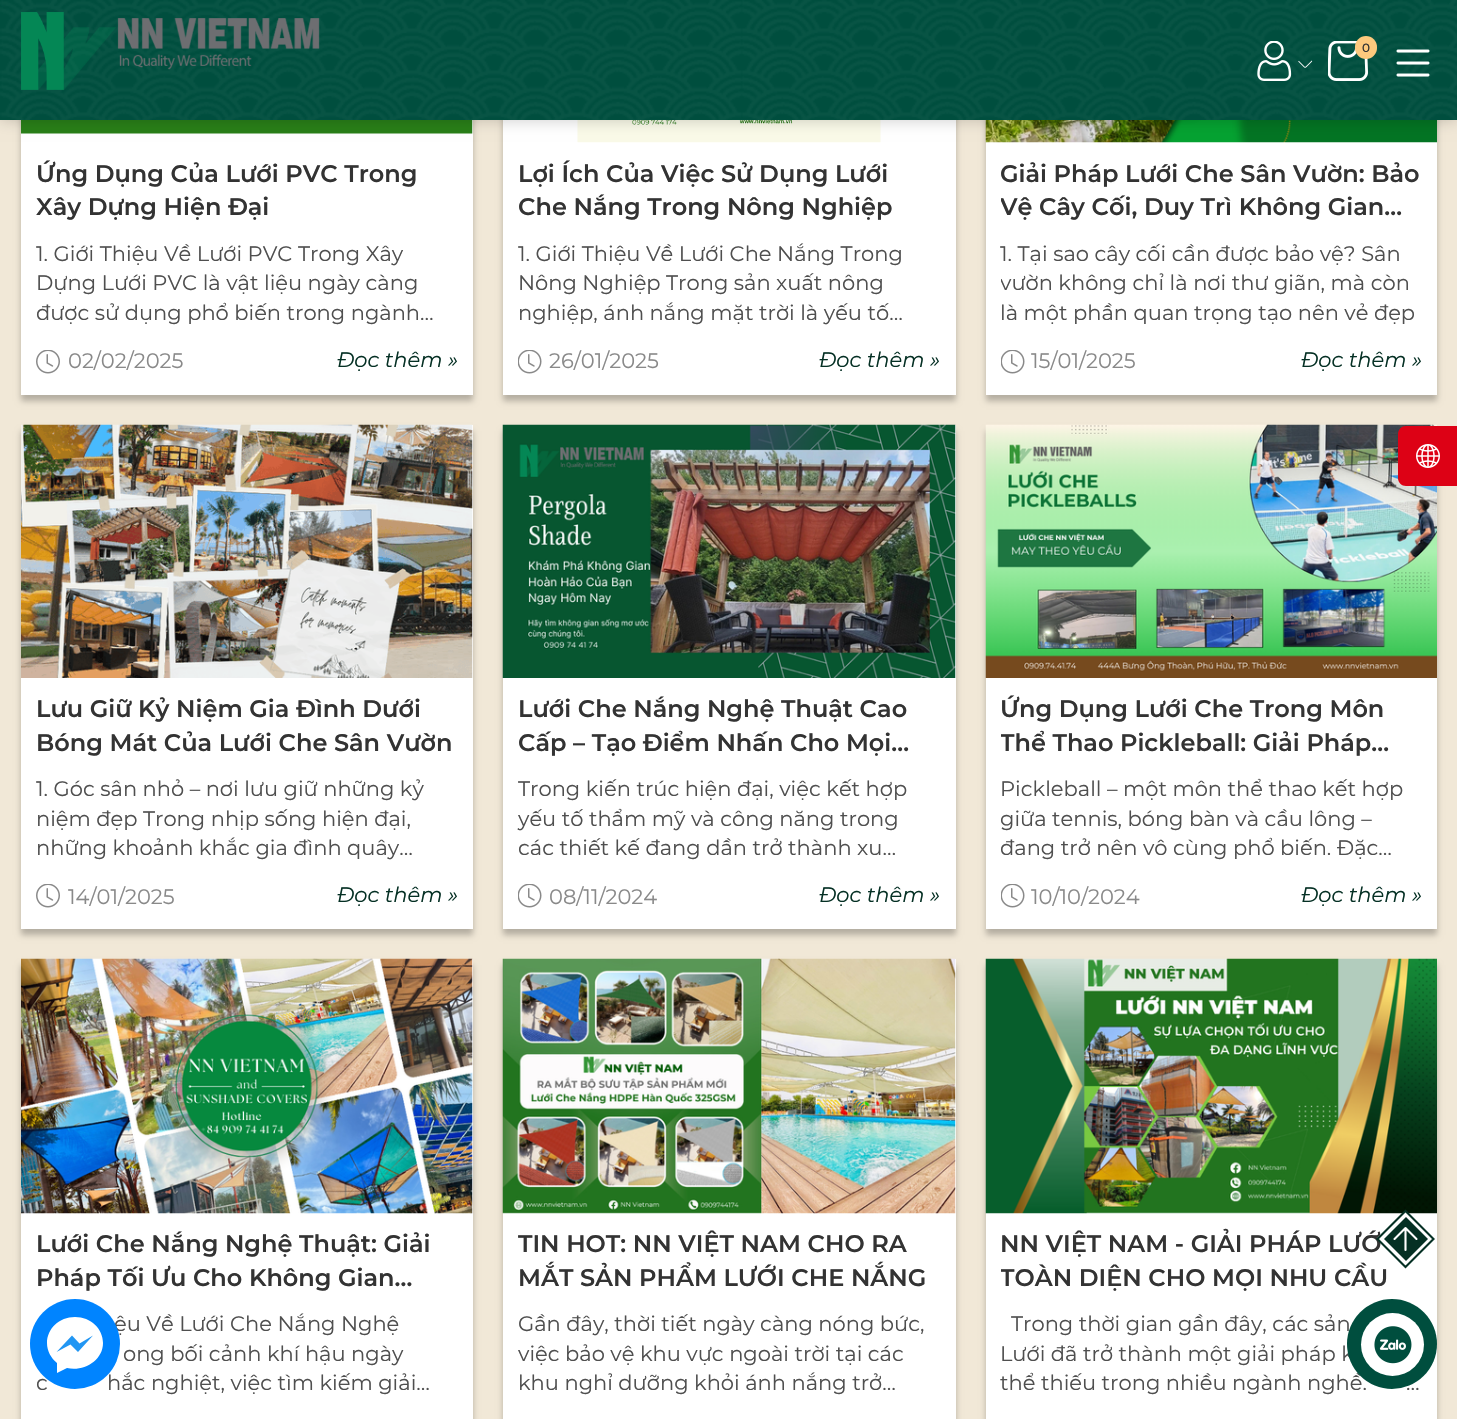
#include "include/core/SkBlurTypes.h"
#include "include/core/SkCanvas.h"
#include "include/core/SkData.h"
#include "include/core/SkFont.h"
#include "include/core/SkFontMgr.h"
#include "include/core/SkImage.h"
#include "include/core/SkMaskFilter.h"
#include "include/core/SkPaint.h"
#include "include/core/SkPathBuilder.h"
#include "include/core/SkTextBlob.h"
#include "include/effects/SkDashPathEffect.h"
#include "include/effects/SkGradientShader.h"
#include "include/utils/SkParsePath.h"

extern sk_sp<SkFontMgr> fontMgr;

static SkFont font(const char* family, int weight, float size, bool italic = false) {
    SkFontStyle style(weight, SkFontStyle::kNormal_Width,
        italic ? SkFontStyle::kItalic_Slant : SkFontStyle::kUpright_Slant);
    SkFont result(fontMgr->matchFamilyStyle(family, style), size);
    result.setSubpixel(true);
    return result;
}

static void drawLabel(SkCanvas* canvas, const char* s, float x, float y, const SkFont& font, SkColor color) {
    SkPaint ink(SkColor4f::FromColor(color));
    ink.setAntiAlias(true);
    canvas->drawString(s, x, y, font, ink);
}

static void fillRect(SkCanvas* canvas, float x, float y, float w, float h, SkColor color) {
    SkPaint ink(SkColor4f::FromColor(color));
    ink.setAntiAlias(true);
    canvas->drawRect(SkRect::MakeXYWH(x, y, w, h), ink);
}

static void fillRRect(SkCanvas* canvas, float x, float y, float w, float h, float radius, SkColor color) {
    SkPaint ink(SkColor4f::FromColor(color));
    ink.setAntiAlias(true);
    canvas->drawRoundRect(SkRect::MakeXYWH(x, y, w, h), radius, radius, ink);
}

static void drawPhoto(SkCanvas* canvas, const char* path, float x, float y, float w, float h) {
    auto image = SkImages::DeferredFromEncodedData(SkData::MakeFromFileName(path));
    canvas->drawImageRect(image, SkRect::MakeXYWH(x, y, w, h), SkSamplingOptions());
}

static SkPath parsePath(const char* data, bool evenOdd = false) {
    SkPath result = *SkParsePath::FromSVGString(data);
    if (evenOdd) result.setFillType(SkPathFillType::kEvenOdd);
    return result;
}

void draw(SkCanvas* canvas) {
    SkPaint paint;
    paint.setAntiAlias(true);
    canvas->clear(0xFFF1E8D7);
    paint.setColor(0x40000000);
    paint.setMaskFilter(SkMaskFilter::MakeBlur(kNormal_SkBlurStyle, 3));
    canvas->drawRect(SkRect::MakeXYWH(21, -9, 452, 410), paint);
    paint.setMaskFilter(nullptr);
    fillRect(canvas, 21, 120, 452, 275, 0xFFFFFFFF);
    drawPhoto(canvas, "assets/img7.png", 21, 120, 452, 14);
    paint.setMaskFilter(SkMaskFilter::MakeBlur(kNormal_SkBlurStyle, 3));
    canvas->drawRect(SkRect::MakeXYWH(503, -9, 453, 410), paint);
    paint.setMaskFilter(nullptr);
    fillRect(canvas, 503, 120, 453, 275, 0xFFFFFFFF);
    drawPhoto(canvas, "assets/img9.png", 577, 120, 304, 23);
    paint.setMaskFilter(SkMaskFilter::MakeBlur(kNormal_SkBlurStyle, 3));
    canvas->drawRect(SkRect::MakeXYWH(986, -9, 451, 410), paint);
    paint.setMaskFilter(nullptr);
    fillRect(canvas, 986, 142, 451, 253, 0xFFFFFFFF);
    drawPhoto(canvas, "assets/img11.png", 985, 120, 452, 23);
    paint.setColor(0x33000000);
    paint.setMaskFilter(SkMaskFilter::MakeBlur(kNormal_SkBlurStyle, 7.5f));
    canvas->drawRect(SkRect::MakeXYWH(0, 0, 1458, 120), paint);
    paint.setMaskFilter(nullptr);
    fillRect(canvas, 0, 0, 1457, 120, 0xFF004E3E);
    drawPhoto(canvas, "assets/img1.png", 0, 0, 1457, 120);
    drawPhoto(canvas, "assets/img2.png", 21, 12, 299, 78);
    drawPhoto(canvas, "assets/img3.png", 1257, 41, 35, 40);
    drawPhoto(canvas, "assets/img4.png", 1298, 60, 15, 8);
    drawPhoto(canvas, "assets/img5.png", 1328, 41, 40, 40);
    fillRRect(canvas, 1355, 36, 22, 23, 11, 0xFFFDC97D);
    SkFont font1 = font("Montserrat", 500, 12);
    drawLabel(canvas, "0", 1362, 52, font1, 0xFF333333);
    drawPhoto(canvas, "assets/img6.png", 1396, 49, 34, 28);
    SkFont font2 = font("Montserrat", 600, 24);
    drawLabel(canvas, "Ứng Dụng Của Lưới PVC Trong", 36, 182, font2, 0xFF333333);
    drawLabel(canvas, "Xây Dựng Hiện Đại", 36, 215, font2, 0xFF333333);
    SkFont font3 = font("Montserrat", 400, 21);
    drawLabel(canvas, "1. Giới Thiệu Về Lưới PVC Trong Xây", 36, 261, font3, 0xFF4F4F4F);
    drawLabel(canvas, "Dựng Lưới PVC là vật liệu ngày càng", 36, 290, font3, 0xFF4F4F4F);
    drawLabel(canvas, "được sử dụng phổ biến trong ngành…", 36, 320, font3, 0xFF4F4F4F);
    drawPhoto(canvas, "assets/img8.png", 36, 350, 24, 24);
    drawLabel(canvas, "02/02/2025", 68, 368, font3, 0xFF898989);
    SkFont font4 = font("Montserrat", 400, 21, true);
    drawLabel(canvas, "Đọc thêm »", 337, 367, font4, 0xFF053024);
    drawLabel(canvas, "Lợi Ích Của Việc Sử Dụng Lưới", 518, 182, font2, 0xFF333333);
    drawLabel(canvas, "Che Nắng Trong Nông Nghiệp", 518, 215, font2, 0xFF333333);
    drawLabel(canvas, "1. Giới Thiệu Về Lưới Che Nắng Trong", 518, 261, font3, 0xFF4F4F4F);
    drawLabel(canvas, "Nông Nghiệp Trong sản xuất nông", 518, 290, font3, 0xFF4F4F4F);
    drawLabel(canvas, "nghiệp, ánh nắng mặt trời là yếu tố…", 518, 320, font3, 0xFF4F4F4F);
    drawPhoto(canvas, "assets/img10.png", 518, 350, 24, 24);
    drawLabel(canvas, "26/01/2025", 549, 368, font3, 0xFF898989);
    drawLabel(canvas, "Đọc thêm »", 819, 367, font4, 0xFF053024);
    drawLabel(canvas, "Giải Pháp Lưới Che Sân Vườn: Bảo", 1000, 182, font2, 0xFF333333);
    canvas->save();
    canvas->clipRect(SkRect::MakeXYWH(1001, 158, 421, 67));
    drawLabel(canvas, "Vệ Cây Cối, Duy Trì Không Gian…", 1000, 215, font2, 0xFF333333);
    canvas->restore();
    drawLabel(canvas, "1. Tại sao cây cối cần được bảo vệ? Sân", 1000, 261, font3, 0xFF4F4F4F);
    canvas->save();
    canvas->clipRect(SkRect::MakeXYWH(1001, 240, 421, 89));
    drawLabel(canvas, "vườn không chỉ là nơi thư giãn, mà còn", 1000, 290, font3, 0xFF4F4F4F);
    canvas->restore();
    drawLabel(canvas, "là một phần quan trọng tạo nên vẻ đẹp", 1000, 320, font3, 0xFF4F4F4F);
    drawPhoto(canvas, "assets/img10.png", 1001, 350, 24, 24);
    drawLabel(canvas, "15/01/2025", 1031, 368, font3, 0xFF898989);
    drawLabel(canvas, "Đọc thêm »", 1301, 367, font4, 0xFF053024);
    paint.setColor(0x40000000);
    paint.setMaskFilter(SkMaskFilter::MakeBlur(kNormal_SkBlurStyle, 3));
    canvas->drawRect(SkRect::MakeXYWH(21, 431, 452, 504), paint);
    paint.setMaskFilter(nullptr);
    fillRect(canvas, 21, 425, 452, 504, 0xFFFFFFFF);
    drawPhoto(canvas, "assets/img12.png", 21, 424, 452, 254);
    drawLabel(canvas, "Lưu Giữ Kỷ Niệm Gia Đình Dưới", 36, 717, font2, 0xFF333333);
    drawLabel(canvas, "Bóng Mát Của Lưới Che Sân Vườn", 36, 751, font2, 0xFF333333);
    drawLabel(canvas, "1. Góc sân nhỏ – nơi lưu giữ những kỷ", 36, 796, font3, 0xFF4F4F4F);
    drawLabel(canvas, "niệm đẹp Trong nhịp sống hiện đại,", 36, 826, font3, 0xFF4F4F4F);
    drawLabel(canvas, "những khoảnh khắc gia đình quây…", 36, 855, font3, 0xFF4F4F4F);
    drawPhoto(canvas, "assets/img8.png", 36, 884, 24, 24);
    drawLabel(canvas, "14/01/2025", 68, 904, font3, 0xFF898989);
    drawLabel(canvas, "Đọc thêm »", 337, 902, font4, 0xFF053024);
    paint.setMaskFilter(SkMaskFilter::MakeBlur(kNormal_SkBlurStyle, 3));
    canvas->drawRect(SkRect::MakeXYWH(503, 431, 453, 504), paint);
    paint.setMaskFilter(nullptr);
    fillRect(canvas, 503, 425, 453, 504, 0xFFFFFFFF);
    drawPhoto(canvas, "assets/img13.png", 502, 424, 454, 254);
    drawLabel(canvas, "Lưới Che Nắng Nghệ Thuật Cao", 518, 717, font2, 0xFF333333);
    drawLabel(canvas, "Cấp – Tạo Điểm Nhấn Cho Mọi…", 518, 751, font2, 0xFF333333);
    drawLabel(canvas, "Trong kiến trúc hiện đại, việc kết hợp", 518, 796, font3, 0xFF4F4F4F);
    drawLabel(canvas, "yếu tố thẩm mỹ và công năng trong", 518, 826, font3, 0xFF4F4F4F);
    drawLabel(canvas, "các thiết kế đang dần trở thành xu…", 518, 855, font3, 0xFF4F4F4F);
    drawPhoto(canvas, "assets/img10.png", 518, 884, 24, 24);
    drawLabel(canvas, "08/11/2024", 549, 904, font3, 0xFF898989);
    drawLabel(canvas, "Đọc thêm »", 819, 902, font4, 0xFF053024);
    paint.setMaskFilter(SkMaskFilter::MakeBlur(kNormal_SkBlurStyle, 3));
    canvas->drawRect(SkRect::MakeXYWH(986, 431, 451, 504), paint);
    paint.setMaskFilter(nullptr);
    fillRect(canvas, 986, 678, 451, 251, 0xFFFFFFFF);
    drawPhoto(canvas, "assets/img14.png", 985, 424, 452, 254);
    drawLabel(canvas, "Ứng Dụng Lưới Che Trong Môn", 1000, 717, font2, 0xFF333333);
    canvas->save();
    canvas->clipRect(SkRect::MakeXYWH(1001, 693, 421, 68));
    drawLabel(canvas, "Thể Thao Pickleball: Giải Pháp…", 1000, 751, font2, 0xFF333333);
    canvas->restore();
    drawLabel(canvas, "Pickleball – một môn thể thao kết hợp", 1000, 796, font3, 0xFF4F4F4F);
    drawLabel(canvas, "giữa tennis, bóng bàn và cầu lông –", 1000, 826, font3, 0xFF4F4F4F);
    drawLabel(canvas, "đang trở nên vô cùng phổ biến. Đặc…", 1000, 855, font3, 0xFF4F4F4F);
    drawPhoto(canvas, "assets/img10.png", 1001, 884, 24, 24);
    drawLabel(canvas, "10/10/2024", 1031, 904, font3, 0xFF898989);
    drawLabel(canvas, "Đọc thêm »", 1301, 902, font4, 0xFF053024);
    paint.setMaskFilter(SkMaskFilter::MakeBlur(kNormal_SkBlurStyle, 3));
    canvas->drawRect(SkRect::MakeXYWH(21, 965, 452, 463), paint);
    paint.setMaskFilter(nullptr);
    fillRect(canvas, 21, 959, 452, 460, 0xFFFFFFFF);
    drawPhoto(canvas, "assets/img15.png", 21, 958, 452, 256);
    drawLabel(canvas, "Lưới Che Nắng Nghệ Thuật: Giải", 36, 1252, font2, 0xFF333333);
    drawLabel(canvas, "Pháp Tối Ưu Cho Không Gian…", 36, 1286, font2, 0xFF333333);
    drawLabel(canvas, "ệu Về Lưới Che Nắng Nghệ", 114, 1331, font3, 0xFF4F4F4F);
    drawLabel(canvas, "ong bối cảnh khí hậu ngày", 123, 1361, font3, 0xFF4F4F4F);
    drawLabel(canvas, "c", 36, 1390, font3, 0xFF4F4F4F);
    drawLabel(canvas, "hắc nghiệt, việc tìm kiếm giải…", 107, 1390, font3, 0xFF4F4F4F);
    paint.setMaskFilter(SkMaskFilter::MakeBlur(kNormal_SkBlurStyle, 3));
    canvas->drawRect(SkRect::MakeXYWH(503, 965, 453, 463), paint);
    paint.setMaskFilter(nullptr);
    fillRect(canvas, 503, 959, 453, 460, 0xFFFFFFFF);
    drawPhoto(canvas, "assets/img16.png", 502, 958, 454, 256);
    drawLabel(canvas, "TIN HOT: NN VIỆT NAM CHO RA", 518, 1252, font2, 0xFF333333);
    drawLabel(canvas, "MẮT SẢN PHẨM LƯỚI CHE NẮNG", 518, 1286, font2, 0xFF333333);
    drawLabel(canvas, "Gần đây, thời tiết ngày càng nóng bức,", 518, 1331, font3, 0xFF4F4F4F);
    drawLabel(canvas, "việc bảo vệ khu vực ngoài trời tại các", 518, 1361, font3, 0xFF4F4F4F);
    drawLabel(canvas, "khu nghỉ dưỡng khỏi ánh nắng trở…", 518, 1390, font3, 0xFF4F4F4F);
    paint.setMaskFilter(SkMaskFilter::MakeBlur(kNormal_SkBlurStyle, 3));
    canvas->drawRect(SkRect::MakeXYWH(986, 965, 451, 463), paint);
    paint.setMaskFilter(nullptr);
    fillRect(canvas, 986, 1213, 451, 206, 0xFFFFFFFF);
    drawPhoto(canvas, "assets/img17.png", 985, 958, 452, 256);
    drawLabel(canvas, "NN VIỆT NAM - GIẢI PHÁP LƯỚ", 1000, 1252, font2, 0xFF333333);
    canvas->save();
    canvas->clipRect(SkRect::MakeXYWH(1001, 1229, 421, 67));
    drawLabel(canvas, "TOÀN DIỆN CHO MỌI NHU CẦU", 1000, 1286, font2, 0xFF333333);
    canvas->restore();
    drawLabel(canvas, "Trong thời gian gần đây, các sản", 1011, 1331, font3, 0xFF4F4F4F);
    drawLabel(canvas, "Lưới đã trở thành một giải pháp k", 1000, 1361, font3, 0xFF4F4F4F);
    drawLabel(canvas, "thể thiếu trong nhiều ngành nghề.", 1000, 1390, font3, 0xFF4F4F4F);
    drawLabel(canvas, "…", 1406, 1390, font3, 0xFF4F4F4F);
    paint.setColor(0xFFFFFFFF);
    canvas->drawPath(parsePath("M1405 1267L1378 1239L1405 1211L1433 1239Z"), paint);
    paint.setStroke(true);
    paint.setStrokeWidth(2.1f);
    paint.setColor(0xFF053024);
    canvas->drawPath(parsePath("M1405.5 1267L1377.5 1239L1405.5 1211L1433.5 1239Z"), paint);
    paint.setStroke(false);
    canvas->drawPath(parsePath("M1406 1261L1384 1239L1406 1217L1428 1239Z"), paint);
    paint.setStroke(true);
    paint.setStrokeCap(SkPaint::kRound_Cap);
    paint.setStrokeJoin(SkPaint::kRound_Join);
    paint.setColor(0xFFFFFFFF);
    canvas->drawPath(parsePath("M1405.5 1250V1228M1394.5 1239L1405.5 1228L1416.5 1239"), paint);
    paint.setStroke(false);
    paint.setColor(0xFFDD0115);
    canvas->drawPath(parsePath("M1406 426H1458V486H1406C1401.5 486 1398 482.5 1398 478V434C1398 429.5 1401.5 426 1406 426Z"), paint);
    drawPhoto(canvas, "assets/img18.png", 1416, 444, 24, 24);
    paint.setColor(0xFF0084FF);
    canvas->drawCircle(75, 1344, 45, paint);
    paint.setColor(0xFFFFFFFF);
    canvas->drawPath(parsePath("M103 1343C103 1361 83 1372 67 1368L57 1373V1363C51 1358 47 1351 47 1343C47 1329 59 1317 75 1317C91 1317 103 1329 103 1343Z"), paint);
    paint.setColor(0xFF2196F3);
    canvas->drawPath(parsePath("M93 1335.5L78 1352L70.5 1344.5L56.5 1352L72 1335.5L79.5 1343.5Z"), paint);
    paint.setColor(0xFF004E3E);
    canvas->drawCircle(1392, 1344, 45, paint);
    paint.setColor(0xFFFFFFFF);
    canvas->drawCircle(1392.5f, 1344.5f, 31.5f, paint);
    drawPhoto(canvas, "assets/img19.png", 1374, 1326, 38, 38);
}
